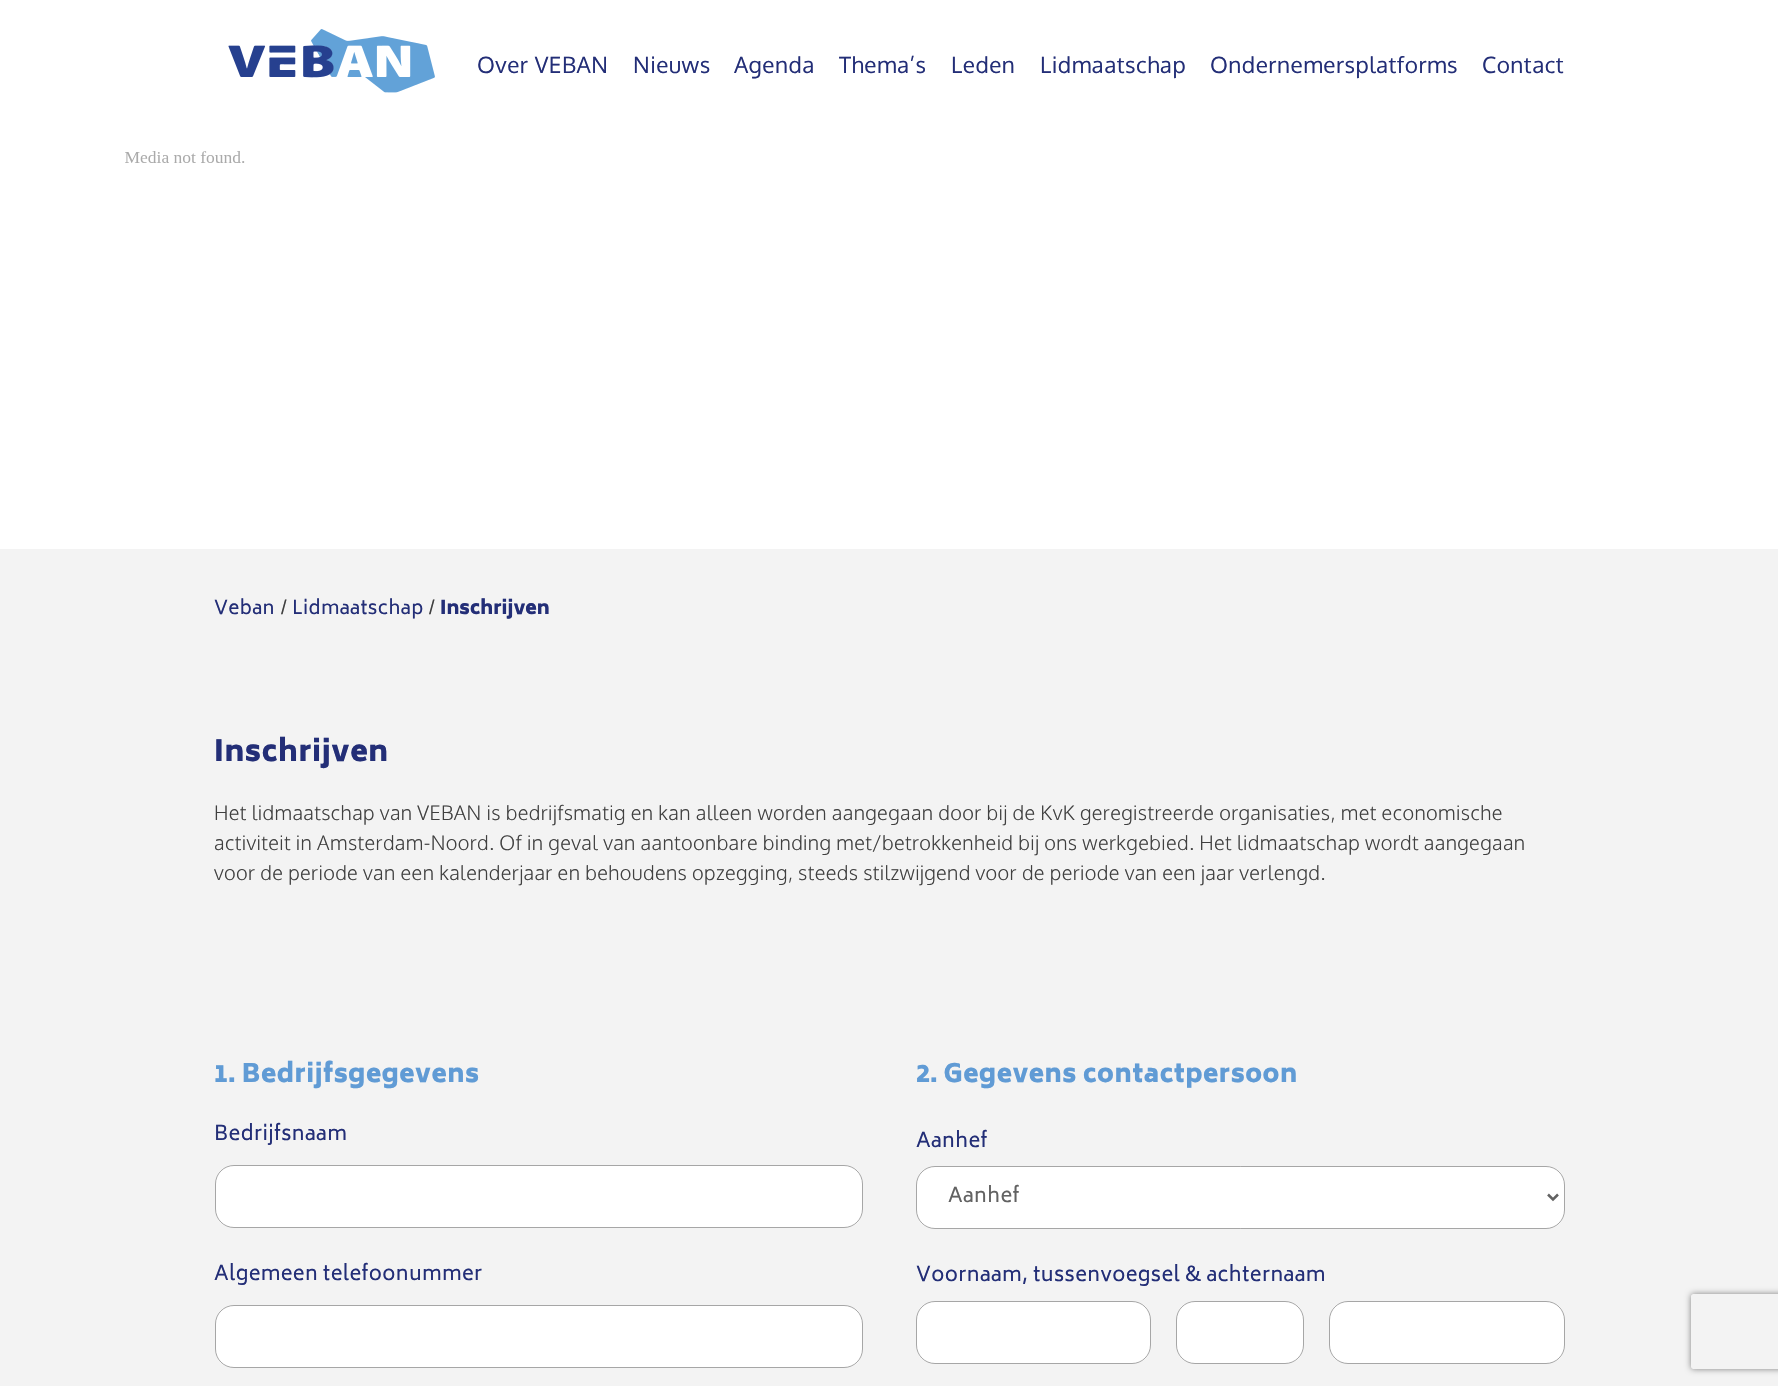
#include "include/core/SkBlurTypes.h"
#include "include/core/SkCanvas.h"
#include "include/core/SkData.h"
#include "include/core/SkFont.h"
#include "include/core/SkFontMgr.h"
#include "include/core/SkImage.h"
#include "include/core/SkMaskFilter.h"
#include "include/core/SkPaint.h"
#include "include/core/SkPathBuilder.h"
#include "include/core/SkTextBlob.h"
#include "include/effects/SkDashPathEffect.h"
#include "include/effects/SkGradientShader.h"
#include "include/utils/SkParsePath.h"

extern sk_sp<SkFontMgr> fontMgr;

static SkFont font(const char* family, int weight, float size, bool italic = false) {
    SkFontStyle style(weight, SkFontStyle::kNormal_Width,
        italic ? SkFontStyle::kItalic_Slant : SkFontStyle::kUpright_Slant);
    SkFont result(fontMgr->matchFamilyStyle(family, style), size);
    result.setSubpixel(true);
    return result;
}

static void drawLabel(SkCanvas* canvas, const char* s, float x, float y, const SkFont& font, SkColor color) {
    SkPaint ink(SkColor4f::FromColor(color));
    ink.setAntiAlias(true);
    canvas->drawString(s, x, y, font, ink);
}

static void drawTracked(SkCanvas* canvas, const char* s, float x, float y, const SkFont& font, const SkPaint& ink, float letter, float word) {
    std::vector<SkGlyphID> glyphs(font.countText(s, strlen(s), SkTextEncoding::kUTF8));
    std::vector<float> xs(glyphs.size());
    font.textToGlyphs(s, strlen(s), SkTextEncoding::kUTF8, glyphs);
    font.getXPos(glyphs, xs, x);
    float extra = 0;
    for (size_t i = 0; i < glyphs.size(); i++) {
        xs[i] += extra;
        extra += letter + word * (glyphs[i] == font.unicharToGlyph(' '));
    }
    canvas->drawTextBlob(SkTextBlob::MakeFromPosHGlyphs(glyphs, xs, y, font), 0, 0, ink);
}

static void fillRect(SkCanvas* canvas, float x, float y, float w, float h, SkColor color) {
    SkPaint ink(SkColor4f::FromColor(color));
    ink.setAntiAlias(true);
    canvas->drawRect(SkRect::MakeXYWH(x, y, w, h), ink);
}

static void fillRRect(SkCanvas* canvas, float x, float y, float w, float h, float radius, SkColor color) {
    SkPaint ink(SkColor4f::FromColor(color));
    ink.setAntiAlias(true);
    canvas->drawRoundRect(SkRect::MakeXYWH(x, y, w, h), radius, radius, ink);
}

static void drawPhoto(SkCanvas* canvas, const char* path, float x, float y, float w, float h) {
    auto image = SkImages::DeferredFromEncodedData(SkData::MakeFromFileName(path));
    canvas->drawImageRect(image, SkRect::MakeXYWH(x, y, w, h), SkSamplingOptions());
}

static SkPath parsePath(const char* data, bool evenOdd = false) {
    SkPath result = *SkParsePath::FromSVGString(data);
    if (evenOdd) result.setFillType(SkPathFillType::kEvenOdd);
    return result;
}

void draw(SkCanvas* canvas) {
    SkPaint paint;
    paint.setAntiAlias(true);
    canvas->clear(0xFFFFFFFF);
    drawPhoto(canvas, "assets/img1.png", 228, 29, 207, 64);
    SkFont font1 = font("Oxygen", 400, 22.5f);
    paint.setColor(0xFF232E77);
    drawTracked(canvas, "Over VEBAN", 477, 73, font1, paint, 0.5f, 0);
    drawTracked(canvas, "Nieuws", 633, 73, font1, paint, 0.5f, 0);
    drawTracked(canvas, "Agenda", 734, 73, font1, paint, 0.5f, 0);
    drawTracked(canvas, "Thema’s", 839, 73, font1, paint, 0.5f, 0);
    drawTracked(canvas, "Leden", 951, 73, font1, paint, 0.5f, 0);
    drawTracked(canvas, "Lidmaatschap", 1040, 73, font1, paint, 0.5f, 0);
    drawTracked(canvas, "Ondernemersplatforms", 1210, 73, font1, paint, 0.5f, 0);
    drawTracked(canvas, "Contact", 1482, 73, font1, paint, 0.5f, 0);
    drawPhoto(canvas, "assets/img2.png", 125, 151, 120, 12);
    fillRect(canvas, 0, 549, 1778, 837, 0xFFF3F3F3);
    SkFont font2 = font("Biryani", 400, 18.75f);
    drawTracked(canvas, "Veban", 214, 614, font2, paint, 0.38f, 0);
    SkFont font3 = font("Liberation Sans", 400, 20);
    drawLabel(canvas, "/", 281, 614, font3, 0xFF404040);
    drawTracked(canvas, "Lidmaatschap", 292, 614, font2, paint, 0.38f, 0);
    drawLabel(canvas, "/", 429, 614, font3, 0xFF404040);
    SkFont font4 = font("Biryani", 900, 18.75f);
    drawLabel(canvas, "Inschrijven", 440, 614, font4, 0xFF232E77);
    SkFont font5 = font("Biryani", 900, 28.75f);
    drawTracked(canvas, "Inschrijven", 214, 761, font5, paint, 0.6f, 0);
    SkFont font6 = font("Oxygen", 300, 20);
    paint.setColor(0xFF404040);
    drawTracked(canvas, "Het lidmaatschap van VEBAN is bedrijfsmatig en kan alleen worden aangegaan door bij de KvK geregistreerde organisaties, met economische", 214, 820, font6, paint, 0.38f, 0);
    drawTracked(canvas, "activiteit in Amsterdam-Noord. Of in geval van aantoonbare binding met/betrokkenheid bij ons werkgebied. Het lidmaatschap wordt aangegaan", 214, 850, font6, paint, 0.38f, 0);
    drawTracked(canvas, "voor de periode van een kalenderjaar en behoudens opzegging, steeds stilzwijgend voor de periode van een jaar verlengd.", 214, 880, font6, paint, 0.38f, 0);
    SkFont font7 = font("Biryani", 900, 25);
    paint.setColor(0xFF609BD5);
    drawTracked(canvas, "1. Bedrijfsgegevens", 214, 1082, font7, paint, 0.5f, 0);
    SkFont font8 = font("Biryani", 400, 20);
    paint.setColor(0xFF232E77);
    drawTracked(canvas, "Bedrijfsnaam", 214, 1140, font8, paint, 0.38f, 0);
    fillRRect(canvas, 215, 1165, 648, 63, 19, 0xFFFFFFFF);
    paint.setStroke(true);
    paint.setStrokeWidth(1);
    paint.setColor(0x66202020);
    canvas->drawRoundRect(SkRect::MakeXYWH(215.5f, 1165.5f, 647, 62), 18.5f, 18.5f, paint);
    paint.setStroke(false);
    paint.setColor(0xFF232E77);
    drawTracked(canvas, "Algemeen telefoonummer", 214, 1280, font8, paint, 0.38f, 0);
    fillRRect(canvas, 215, 1305, 648, 63, 19, 0xFFFFFFFF);
    paint.setStroke(true);
    paint.setColor(0x66202020);
    canvas->drawRoundRect(SkRect::MakeXYWH(215.5f, 1305.5f, 647, 62), 18.5f, 18.5f, paint);
    paint.setStroke(false);
    paint.setColor(0xFF609BD5);
    drawTracked(canvas, "2. Gegevens contactpersoon", 916, 1082, font7, paint, 0.5f, 0);
    paint.setColor(0xFF232E77);
    drawTracked(canvas, "Aanhef", 916, 1147, font8, paint, 0.38f, 0);
    fillRRect(canvas, 916, 1166, 649, 63, 19, 0xFFFFFFFF);
    paint.setStroke(true);
    paint.setColor(0x66202020);
    canvas->drawRoundRect(SkRect::MakeXYWH(916.5f, 1166.5f, 648, 62), 18.5f, 18.5f, paint);
    paint.setStrokeWidth(2.5f);
    paint.setColor(0xFF626262);
    canvas->drawPath(parsePath("M1548 1194.5L1553 1199.5L1558 1194.5"), paint);
    paint.setStroke(false);
    drawTracked(canvas, "Aanhef", 948, 1202, font8, paint, 0.38f, 0);
    paint.setColor(0xFF232E77);
    drawTracked(canvas, "Voornaam, tussenvoegsel & achternaam", 916, 1281, font8, paint, 0.38f, 0);
    fillRRect(canvas, 916, 1301, 235, 63, 19, 0xFFFFFFFF);
    paint.setStroke(true);
    paint.setStrokeWidth(1);
    paint.setColor(0x66202020);
    canvas->drawRoundRect(SkRect::MakeXYWH(916.5f, 1301.5f, 234, 62), 18.5f, 18.5f, paint);
    fillRRect(canvas, 1176, 1301, 128, 63, 19, 0xFFFFFFFF);
    canvas->drawRoundRect(SkRect::MakeXYWH(1176.5f, 1301.5f, 127, 62), 18.5f, 18.5f, paint);
    fillRRect(canvas, 1329, 1301, 236, 63, 19, 0xFFFFFFFF);
    canvas->drawRoundRect(SkRect::MakeXYWH(1329.5f, 1301.5f, 235, 62), 18.5f, 18.5f, paint);
    canvas->save();
    canvas->clipPath(parsePath("M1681 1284H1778V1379H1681ZM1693.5 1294H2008.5C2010 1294 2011 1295 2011 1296.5V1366.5C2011 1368 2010 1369 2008.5 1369H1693.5C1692 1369 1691 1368 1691 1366.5V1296.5C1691 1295 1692 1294 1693.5 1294Z", true), true);
    paint.setStroke(false);
    paint.setColor(0xFF808080);
    paint.setMaskFilter(SkMaskFilter::MakeBlur(kNormal_SkBlurStyle, 3));
    canvas->drawRoundRect(SkRect::MakeXYWH(1691, 1294, 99, 75), 2.5f, 2.5f, paint);
    paint.setMaskFilter(nullptr);
    canvas->restore();
}
